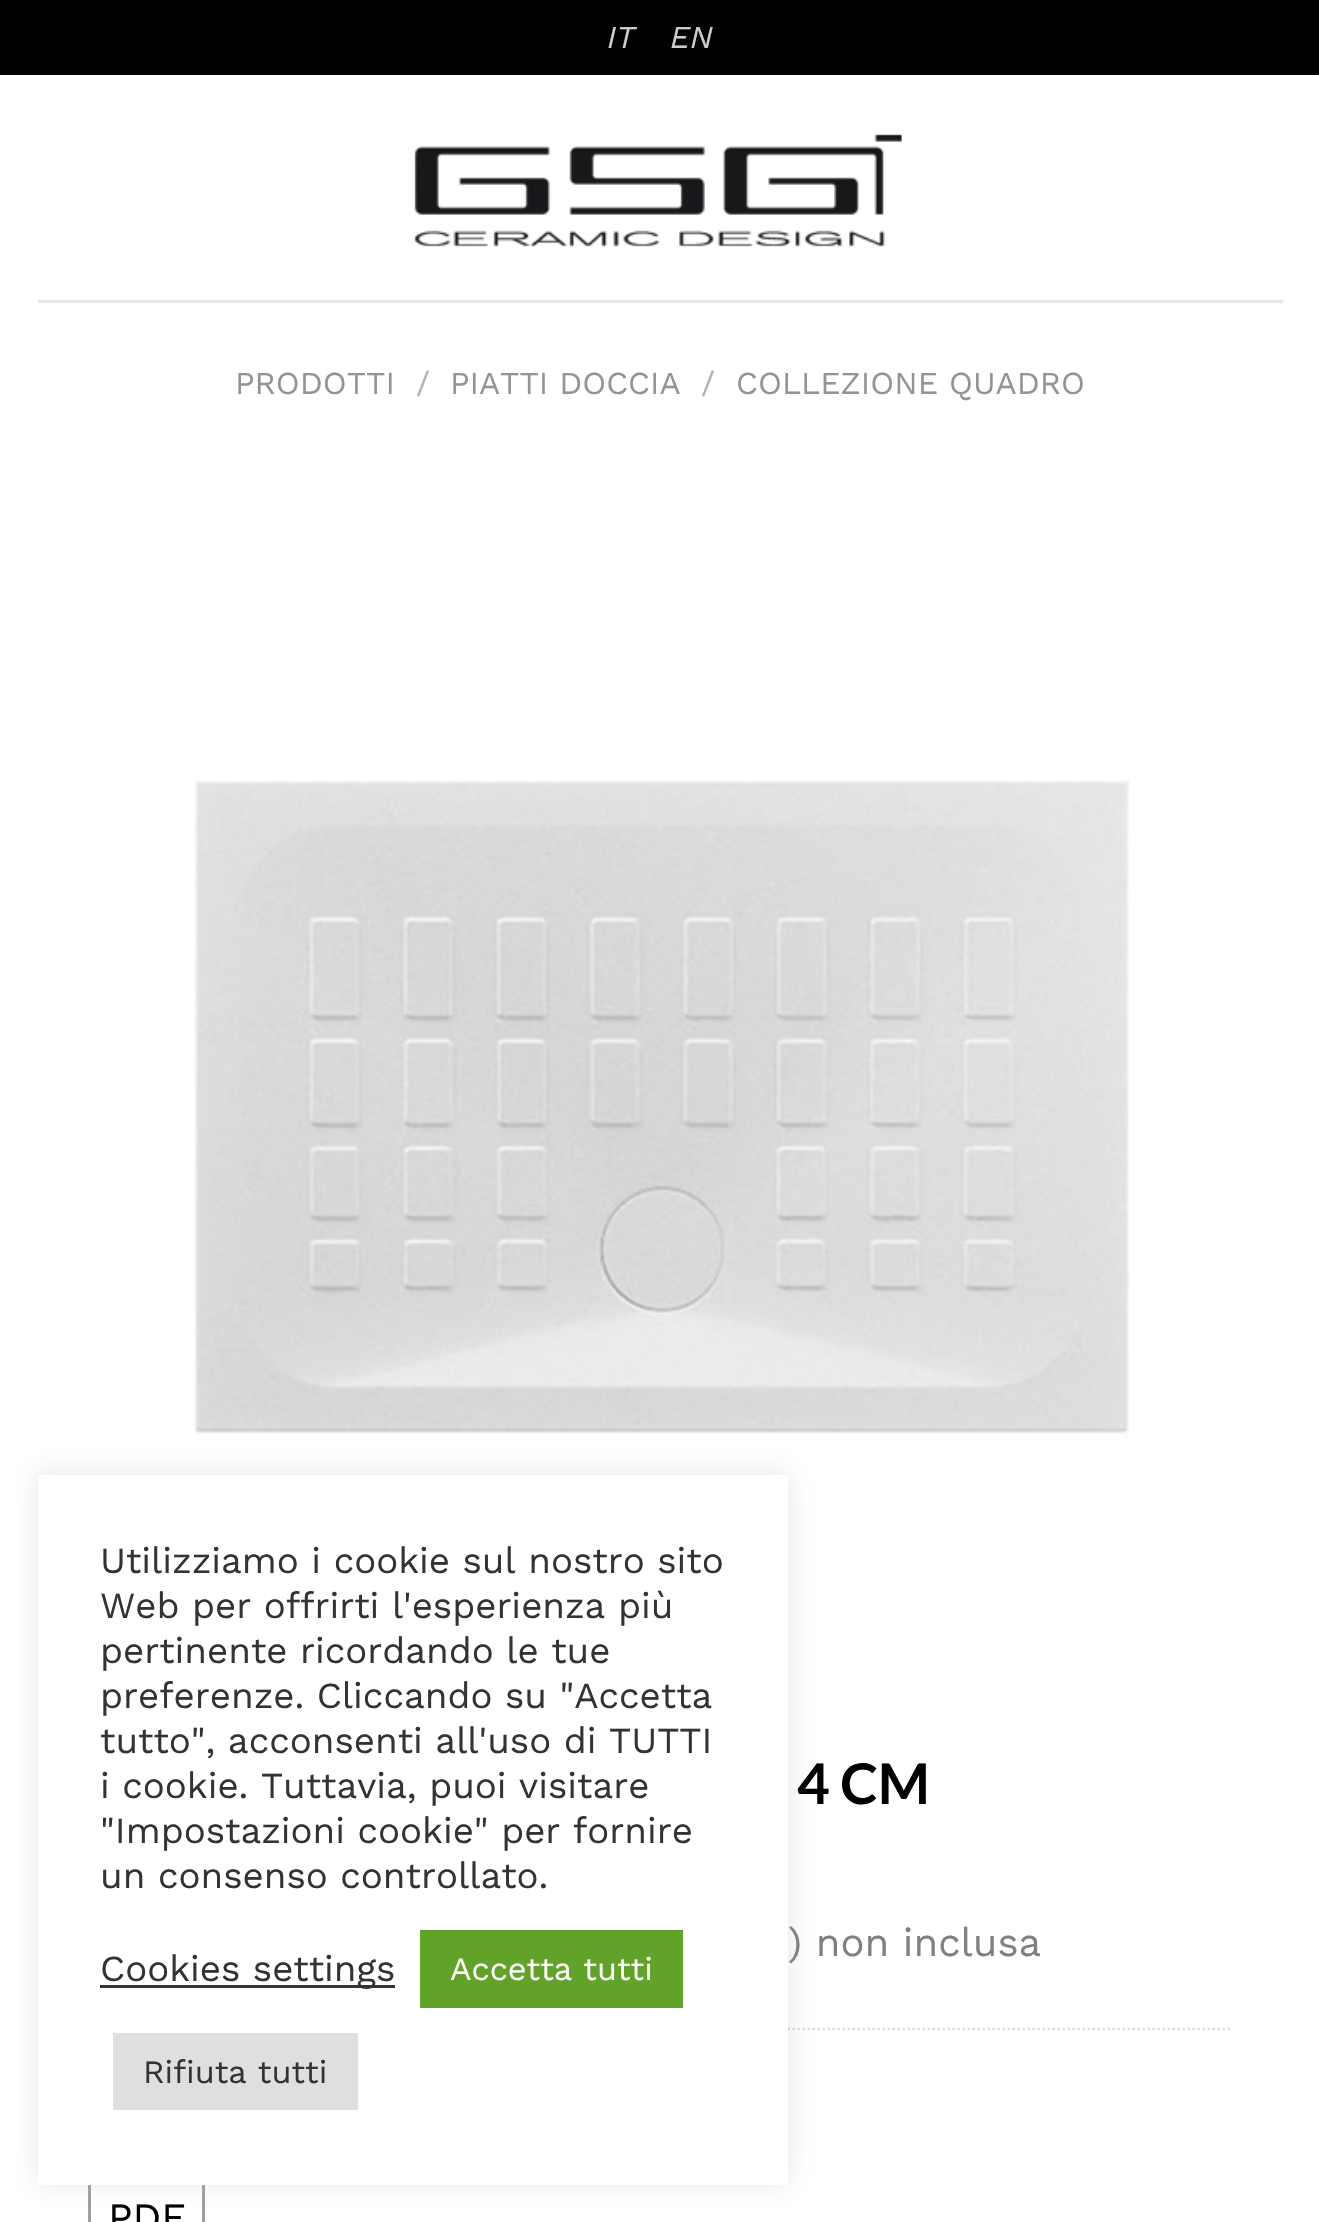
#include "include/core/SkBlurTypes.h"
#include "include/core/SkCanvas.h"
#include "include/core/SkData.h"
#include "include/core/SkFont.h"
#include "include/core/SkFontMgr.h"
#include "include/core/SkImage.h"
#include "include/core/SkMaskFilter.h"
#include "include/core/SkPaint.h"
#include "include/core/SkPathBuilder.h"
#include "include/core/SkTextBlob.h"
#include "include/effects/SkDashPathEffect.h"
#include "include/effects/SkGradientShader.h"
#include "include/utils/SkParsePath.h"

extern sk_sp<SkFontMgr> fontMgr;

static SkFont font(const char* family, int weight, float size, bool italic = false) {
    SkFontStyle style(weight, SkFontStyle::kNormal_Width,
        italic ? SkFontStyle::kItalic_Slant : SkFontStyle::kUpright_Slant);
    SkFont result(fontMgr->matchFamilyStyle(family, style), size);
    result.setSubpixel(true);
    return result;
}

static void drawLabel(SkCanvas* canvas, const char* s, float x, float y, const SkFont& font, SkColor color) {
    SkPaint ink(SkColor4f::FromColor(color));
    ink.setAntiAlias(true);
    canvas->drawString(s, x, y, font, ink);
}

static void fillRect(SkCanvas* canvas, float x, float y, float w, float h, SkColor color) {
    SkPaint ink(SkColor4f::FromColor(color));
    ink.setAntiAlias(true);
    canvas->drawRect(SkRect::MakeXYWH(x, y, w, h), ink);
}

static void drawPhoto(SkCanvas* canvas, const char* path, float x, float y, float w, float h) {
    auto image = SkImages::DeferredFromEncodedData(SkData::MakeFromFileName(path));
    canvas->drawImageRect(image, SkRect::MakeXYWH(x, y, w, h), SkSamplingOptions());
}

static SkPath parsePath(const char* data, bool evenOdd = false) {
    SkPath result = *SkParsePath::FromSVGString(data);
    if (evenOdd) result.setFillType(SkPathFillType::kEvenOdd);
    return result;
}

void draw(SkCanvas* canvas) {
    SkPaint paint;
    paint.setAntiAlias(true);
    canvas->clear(0xFFFFFFFF);
    fillRect(canvas, 0, 0, 1319, 75, 0xFF000000);
    SkFont font1 = font("Work Sans", 400, 32, true);
    drawLabel(canvas, "IT", 607, 48, font1, 0xFFCCCCCC);
    drawLabel(canvas, "EN", 670, 48, font1, 0xFFCCCCCC);
    drawPhoto(canvas, "assets/img1.png", 414, 134, 488, 113);
    fillRect(canvas, 38, 300, 1245, 3, 0xFFE6E6E6);
    SkFont font2 = font("Work Sans", 400, 32);
    drawLabel(canvas, "PRODOTTI", 235, 394, font2, 0xFF949494);
    drawLabel(canvas, "/", 416, 394, font2, 0xFFB2B2B2);
    drawLabel(canvas, "PIATTI DOCCIA", 450, 394, font2, 0xFF949494);
    drawLabel(canvas, "/", 701, 394, font2, 0xFFB2B2B2);
    drawLabel(canvas, "COLLEZIONE QUADRO", 736, 394, font2, 0xFF949494);
    drawPhoto(canvas, "assets/img2.png", 194, 780, 936, 656);
    SkFont font3 = font("Lato", 700, 56);
    drawLabel(canvas, "4 CM", 797, 1804, font3, 0xFF000000);
    SkFont font4 = font("Work Sans", 400, 40);
    drawLabel(canvas, ") non inclusa", 788, 1956, font4, 0xFF808080);
    paint.setStroke(true);
    paint.setStrokeWidth(2.5f);
    paint.setColor(0xFFDDDDDD);
    paint.setPathEffect(SkDashPathEffect::Make({{2.5f, 2.5f}}, 0));
    canvas->drawPath(parsePath("M87.5 2029H1232.5"), paint);
    paint.setPathEffect(nullptr);
    paint.setStrokeWidth(3);
    paint.setColor(0xFF9E9E9E);
    canvas->drawRect(SkRect::MakeXYWH(89.5f, 2169.5f, 114, 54), paint);
    drawLabel(canvas, "PDF", 108, 2231, font4, 0xFF000000);
    paint.setStroke(false);
    paint.setColor(0x4DACABAB);
    paint.setMaskFilter(SkMaskFilter::MakeBlur(kNormal_SkBlurStyle, 12.5f));
    canvas->drawRect(SkRect::MakeXYWH(38, 1473, 750, 710), paint);
    paint.setMaskFilter(nullptr);
    fillRect(canvas, 38, 1475, 750, 710, 0xFFFFFFFF);
    SkFont font5 = font("Work Sans", 400, 36.7f);
    drawLabel(canvas, "Utilizziamo i cookie sul nostro sito", 100, 1573, font5, 0xFF333333);
    drawLabel(canvas, "Web per offrirti l'esperienza più", 100, 1618, font5, 0xFF333333);
    drawLabel(canvas, "pertinente ricordando le tue", 100, 1663, font5, 0xFF333333);
    drawLabel(canvas, "preferenze. Cliccando su \"Accetta", 100, 1708, font5, 0xFF333333);
    drawLabel(canvas, "tutto\", acconsenti all'uso di TUTTI", 100, 1753, font5, 0xFF333333);
    drawLabel(canvas, "i cookie. Tuttavia, puoi visitare", 100, 1798, font5, 0xFF333333);
    drawLabel(canvas, "\"Impostazioni cookie\" per fornire", 100, 1843, font5, 0xFF333333);
    drawLabel(canvas, "un consenso controllato.", 100, 1888, font5, 0xFF333333);
    fillRect(canvas, 100, 1985, 295, 3, 0xFF333333);
    drawLabel(canvas, "Cookies settings", 100, 1981, font5, 0xFF333333);
    fillRect(canvas, 420, 1930, 263, 78, 0xFF61A229);
    SkFont font6 = font("Work Sans", 400, 32.5f);
    drawLabel(canvas, "Accetta tutti", 450, 1980, font6, 0xFFFFFFFF);
    fillRect(canvas, 113, 2033, 245, 77, 0xFFDEDFE0);
    drawLabel(canvas, "Rifiuta tutti", 143, 2083, font6, 0xFF333333);
}
